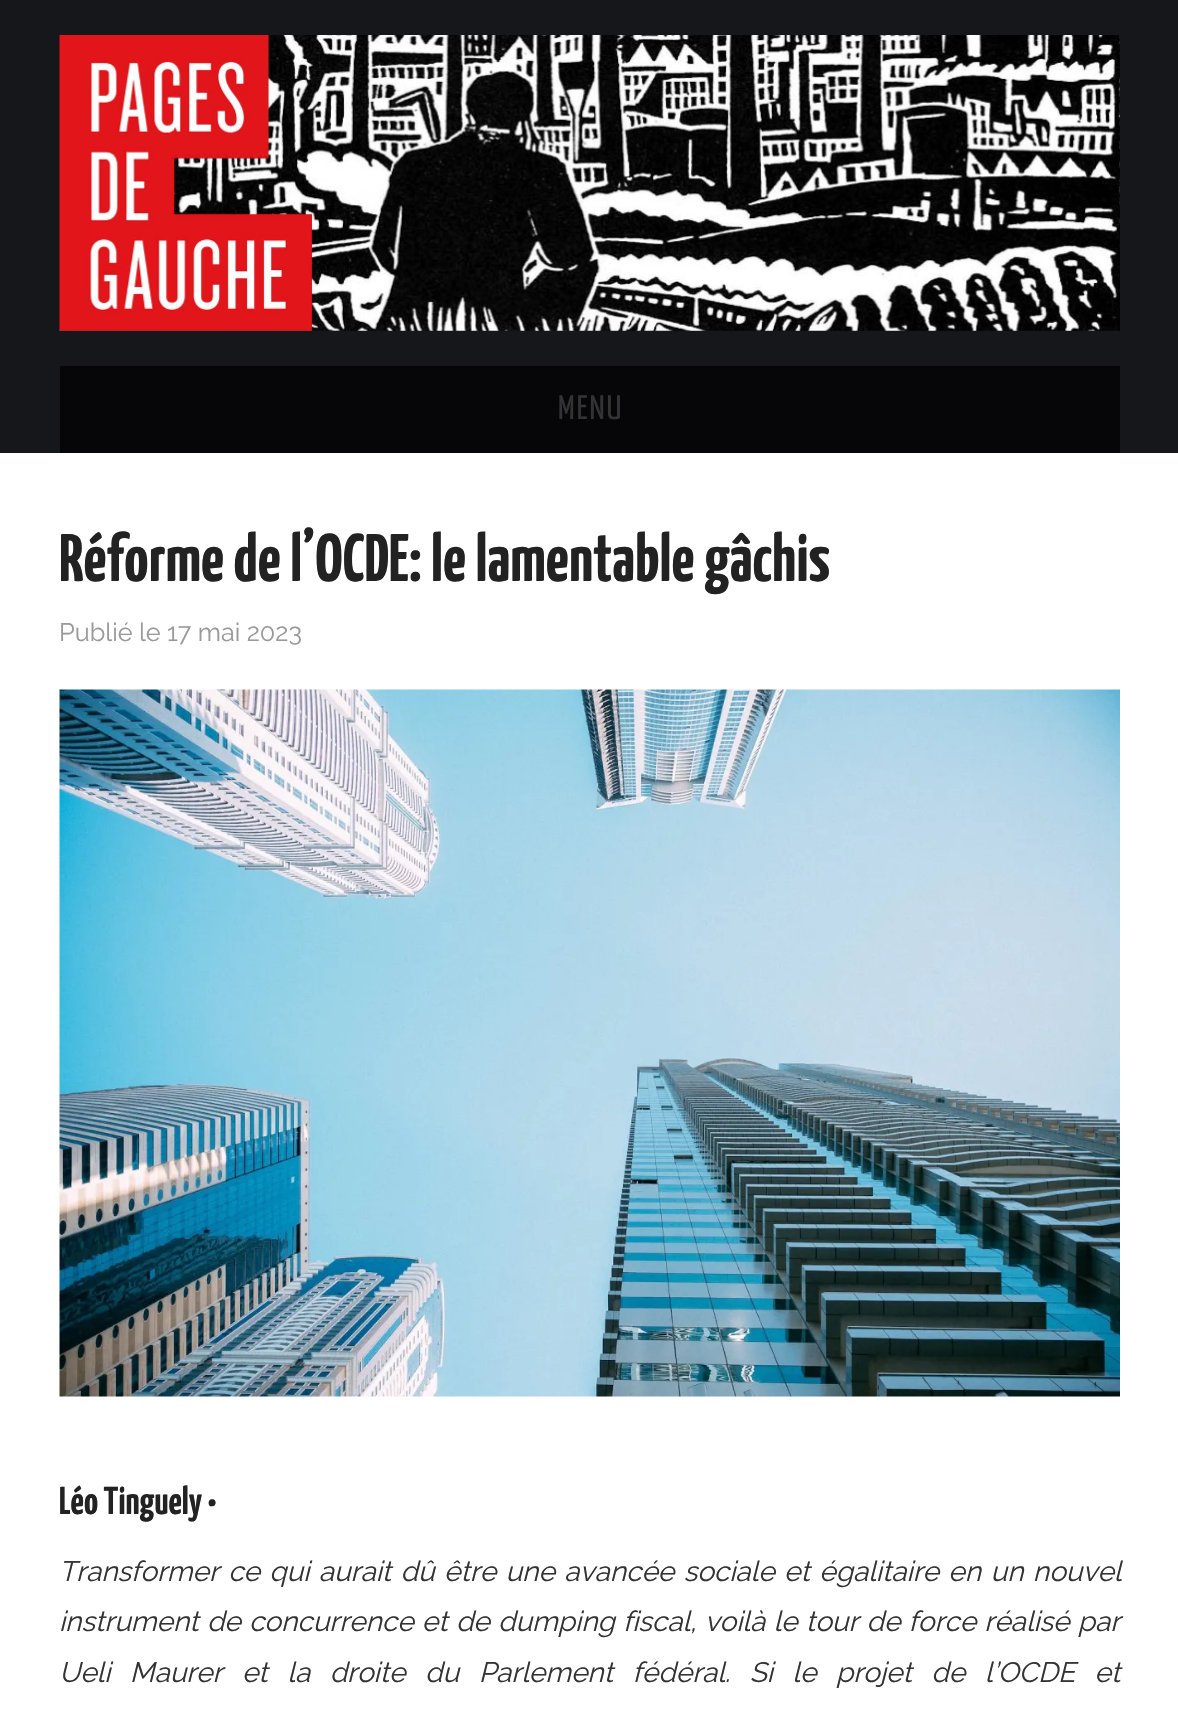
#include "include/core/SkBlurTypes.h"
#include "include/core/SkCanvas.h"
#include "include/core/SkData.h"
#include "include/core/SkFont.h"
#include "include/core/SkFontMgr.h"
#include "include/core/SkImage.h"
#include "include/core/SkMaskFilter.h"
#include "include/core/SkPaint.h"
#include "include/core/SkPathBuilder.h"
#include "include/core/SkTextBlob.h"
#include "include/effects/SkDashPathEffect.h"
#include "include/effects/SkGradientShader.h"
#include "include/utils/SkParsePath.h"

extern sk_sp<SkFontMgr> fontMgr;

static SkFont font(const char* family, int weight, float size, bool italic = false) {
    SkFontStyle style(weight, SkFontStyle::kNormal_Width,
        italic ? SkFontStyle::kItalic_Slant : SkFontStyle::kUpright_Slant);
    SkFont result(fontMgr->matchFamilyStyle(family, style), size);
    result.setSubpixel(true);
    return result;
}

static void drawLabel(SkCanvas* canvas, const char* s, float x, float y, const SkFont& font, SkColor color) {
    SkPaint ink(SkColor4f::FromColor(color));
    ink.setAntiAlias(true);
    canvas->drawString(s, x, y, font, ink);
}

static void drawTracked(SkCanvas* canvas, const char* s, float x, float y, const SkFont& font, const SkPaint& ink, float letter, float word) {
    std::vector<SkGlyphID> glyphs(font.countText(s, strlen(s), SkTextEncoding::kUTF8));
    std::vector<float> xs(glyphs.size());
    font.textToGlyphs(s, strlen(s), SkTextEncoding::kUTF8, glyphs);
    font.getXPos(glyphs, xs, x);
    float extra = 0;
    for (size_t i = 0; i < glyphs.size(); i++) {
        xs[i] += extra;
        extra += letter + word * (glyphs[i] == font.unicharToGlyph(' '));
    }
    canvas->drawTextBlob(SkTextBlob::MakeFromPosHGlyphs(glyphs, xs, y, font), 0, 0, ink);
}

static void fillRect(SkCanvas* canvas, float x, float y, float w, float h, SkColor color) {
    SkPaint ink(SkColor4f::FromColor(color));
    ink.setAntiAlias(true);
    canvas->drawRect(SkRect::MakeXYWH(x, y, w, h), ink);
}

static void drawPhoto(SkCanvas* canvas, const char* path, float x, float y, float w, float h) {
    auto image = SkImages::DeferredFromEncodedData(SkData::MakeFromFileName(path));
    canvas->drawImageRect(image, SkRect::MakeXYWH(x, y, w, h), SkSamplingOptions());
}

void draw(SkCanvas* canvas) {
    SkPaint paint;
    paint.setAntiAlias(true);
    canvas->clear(0xFFFFFFFF);
    fillRect(canvas, 0, 0, 1178, 453, 0xFF16171B);
    drawPhoto(canvas, "assets/img1.png", 59, 35, 1061, 296);
    fillRect(canvas, 60, 366, 1060, 87, 0xFF060608);
    SkFont font1 = font("Yanone Kaffeesatz", 400, 34);
    paint.setColor(0xFF333333);
    drawTracked(canvas, "MENU", 558, 419, font1, paint, 2, 0);
    SkFont font2 = font("Yanone Kaffeesatz", 700, 67.25f);
    drawLabel(canvas, "Réforme de l’OCDE: le lamentable gâchis", 59, 581, font2, 0xFF222222);
    SkFont font3 = font("Raleway", 400, 25.25f);
    drawLabel(canvas, "Publié le 17 mai 2023", 59, 641, font3, 0xFF999999);
    drawPhoto(canvas, "assets/img2.png", 59, 689, 1061, 708);
    SkFont font4 = font("Yanone Kaffeesatz", 700, 39);
    drawLabel(canvas, "Léo Tinguely •", 59, 1514, font4, 0xFF222222);
    SkFont font5 = font("Raleway", 400, 28, true);
    drawTracked(canvas, "Transformer ce qui aurait dû être une avancée sociale et égalitaire en un nouvel", 59, 1581, font5, paint, 0, 2.25f);
    drawTracked(canvas, "instrument de concurrence et de dumping fiscal, voilà le tour de force réalisé par", 59, 1631, font5, paint, 0, 1.1f);
    drawTracked(canvas, "Ueli Maurer et la droite du Parlement fédéral. Si le projet de l’OCDE et", 59, 1682, font5, paint, 0, 12.4f);
}
